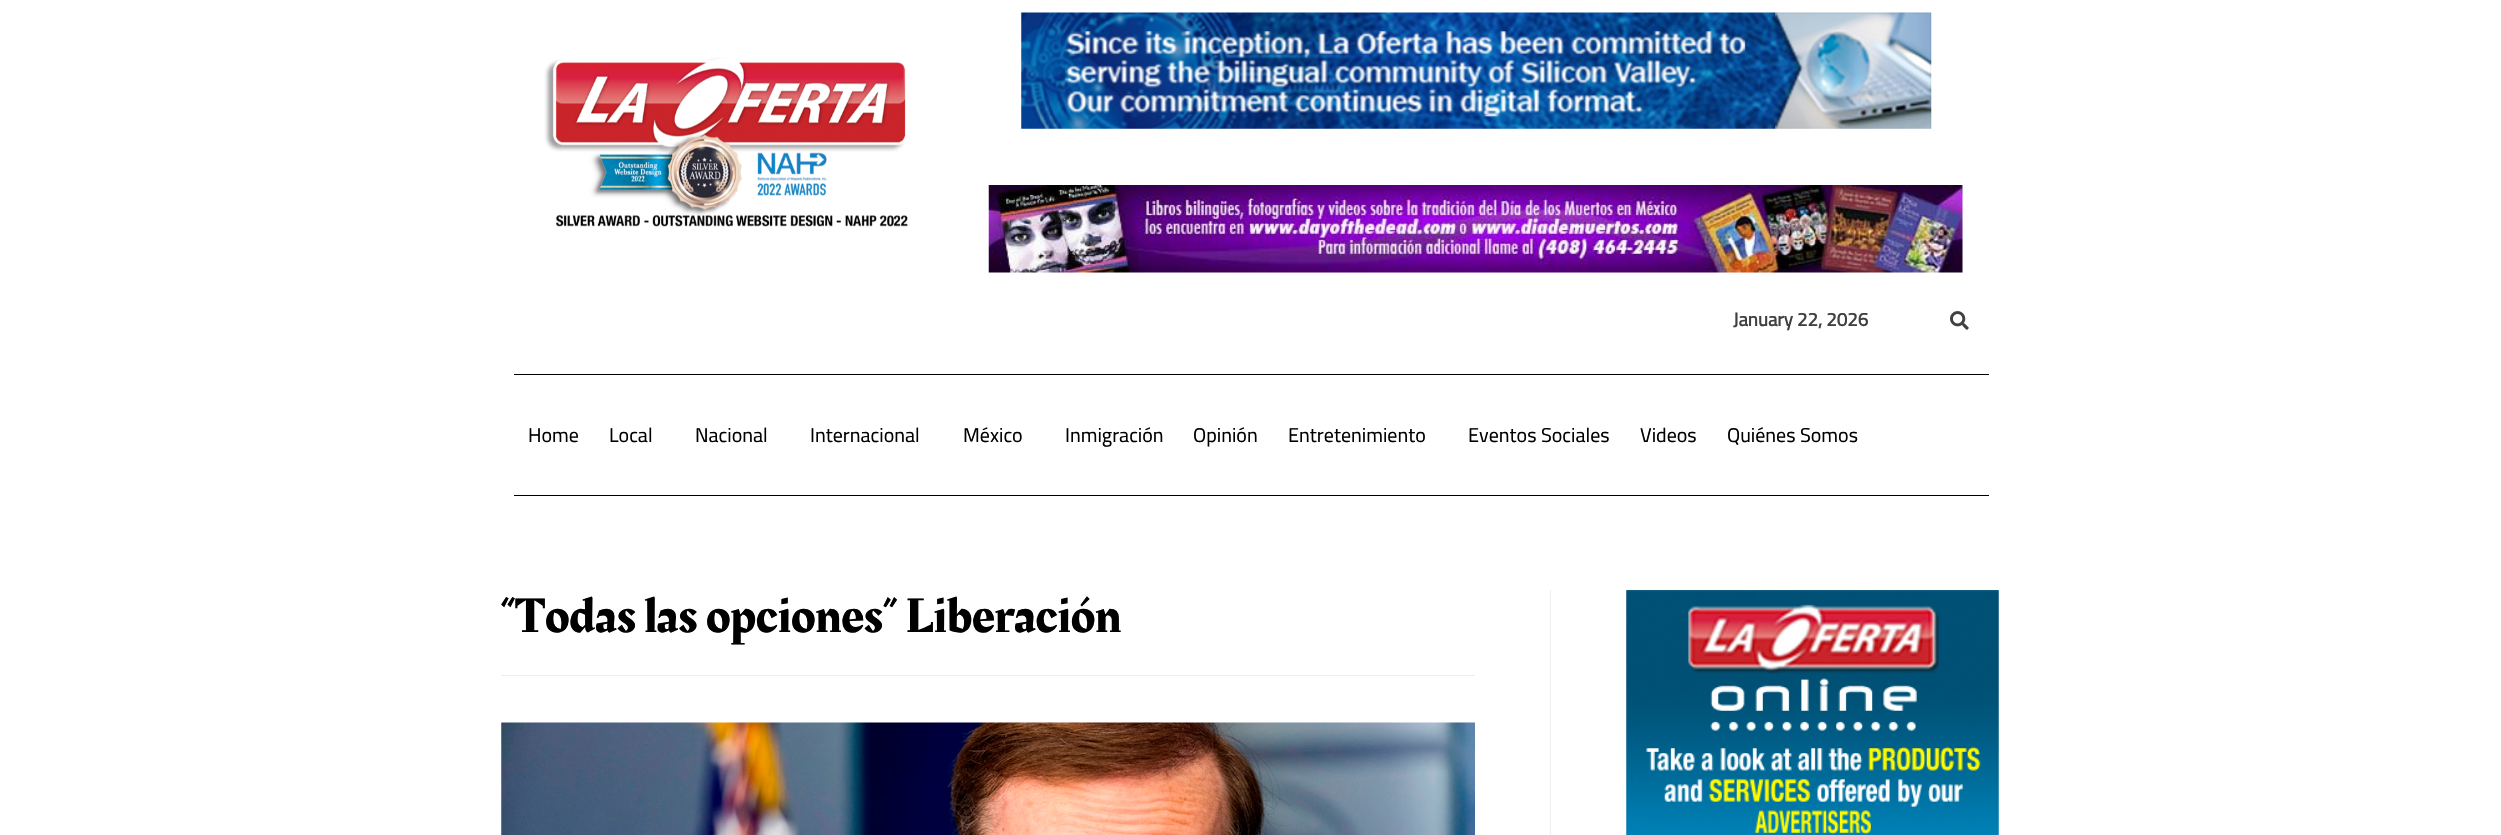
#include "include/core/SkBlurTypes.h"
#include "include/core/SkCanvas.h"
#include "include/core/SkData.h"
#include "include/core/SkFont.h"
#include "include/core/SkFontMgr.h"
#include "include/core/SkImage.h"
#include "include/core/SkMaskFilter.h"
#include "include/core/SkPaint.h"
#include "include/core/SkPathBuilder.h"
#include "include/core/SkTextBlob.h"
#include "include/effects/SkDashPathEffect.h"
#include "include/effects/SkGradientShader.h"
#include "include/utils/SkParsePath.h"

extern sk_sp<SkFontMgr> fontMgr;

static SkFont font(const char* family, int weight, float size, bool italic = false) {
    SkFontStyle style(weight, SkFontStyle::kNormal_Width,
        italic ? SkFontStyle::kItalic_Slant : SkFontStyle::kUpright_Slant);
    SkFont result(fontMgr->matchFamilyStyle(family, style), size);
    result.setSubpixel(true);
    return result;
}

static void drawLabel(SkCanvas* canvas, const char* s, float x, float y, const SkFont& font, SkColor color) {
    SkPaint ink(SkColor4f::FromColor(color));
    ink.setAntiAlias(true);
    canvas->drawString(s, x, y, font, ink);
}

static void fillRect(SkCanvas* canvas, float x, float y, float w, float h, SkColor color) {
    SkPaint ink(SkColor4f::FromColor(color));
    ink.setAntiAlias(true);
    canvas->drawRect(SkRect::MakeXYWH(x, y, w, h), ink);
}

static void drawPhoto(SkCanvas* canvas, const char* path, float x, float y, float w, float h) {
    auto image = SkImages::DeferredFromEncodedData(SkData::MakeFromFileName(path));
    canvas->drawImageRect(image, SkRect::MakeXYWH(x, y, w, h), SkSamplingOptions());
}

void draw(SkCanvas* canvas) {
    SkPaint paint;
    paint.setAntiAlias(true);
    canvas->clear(0xFFFFFFFF);
    drawPhoto(canvas, "assets/img1.png", 544, 57, 364, 170);
    drawPhoto(canvas, "assets/img2.png", 1021, 12, 911, 117);
    drawPhoto(canvas, "assets/img3.png", 988, 185, 975, 88);
    SkFont font1 = font("Cairo", 700, 18.75f);
    drawLabel(canvas, "January 22, 2026", 1733, 326, font1, 0xFF404040);
    drawPhoto(canvas, "assets/img4.png", 1950, 311, 19, 19);
    fillRect(canvas, 514, 374, 1475, 1, 0xFF000000);
    SkFont font2 = font("Cairo", 400, 20);
    drawLabel(canvas, "Home", 528, 442, font2, 0xFF000000);
    drawLabel(canvas, "Local", 609, 442, font2, 0xFF000000);
    drawLabel(canvas, "Nacional", 695, 442, font2, 0xFF000000);
    drawLabel(canvas, "Internacional", 810, 442, font2, 0xFF000000);
    drawLabel(canvas, "México", 963, 442, font2, 0xFF000000);
    drawLabel(canvas, "Inmigración", 1065, 442, font2, 0xFF000000);
    drawLabel(canvas, "Opinión", 1193, 442, font2, 0xFF000000);
    drawLabel(canvas, "Entretenimiento", 1288, 442, font2, 0xFF000000);
    drawLabel(canvas, "Eventos Sociales", 1468, 442, font2, 0xFF000000);
    drawLabel(canvas, "Videos", 1640, 442, font2, 0xFF000000);
    drawLabel(canvas, "Quiénes Somos", 1727, 442, font2, 0xFF000000);
    fillRect(canvas, 514, 495, 1475, 1, 0xFF000000);
    fillRect(canvas, 1550, 590, 1, 245, 0xFFEEEEEE);
    fillRect(canvas, 501, 675, 974, 1, 0xFFEEEEEE);
    SkFont font3 = font("Rakkas", 400, 50);
    drawLabel(canvas, "“Todas las opciones” Liberación", 501, 632, font3, 0xFF000000);
    drawPhoto(canvas, "assets/img5.png", 501, 722, 974, 113);
    drawPhoto(canvas, "assets/img6.png", 1626, 590, 373, 245);
}
